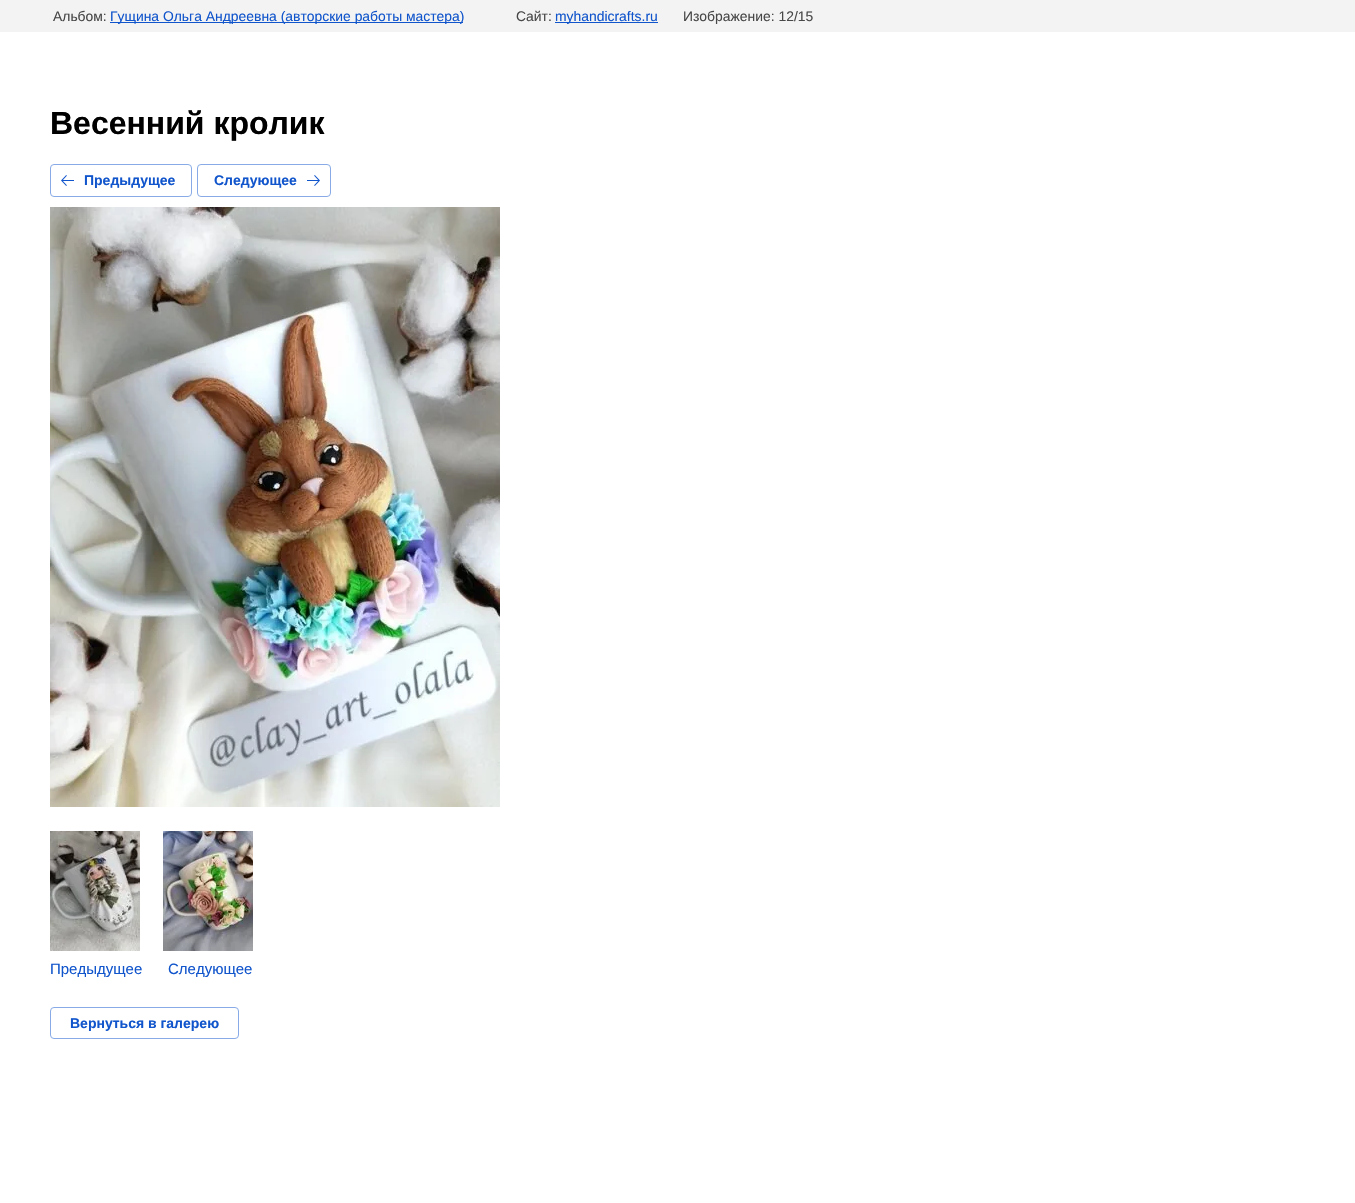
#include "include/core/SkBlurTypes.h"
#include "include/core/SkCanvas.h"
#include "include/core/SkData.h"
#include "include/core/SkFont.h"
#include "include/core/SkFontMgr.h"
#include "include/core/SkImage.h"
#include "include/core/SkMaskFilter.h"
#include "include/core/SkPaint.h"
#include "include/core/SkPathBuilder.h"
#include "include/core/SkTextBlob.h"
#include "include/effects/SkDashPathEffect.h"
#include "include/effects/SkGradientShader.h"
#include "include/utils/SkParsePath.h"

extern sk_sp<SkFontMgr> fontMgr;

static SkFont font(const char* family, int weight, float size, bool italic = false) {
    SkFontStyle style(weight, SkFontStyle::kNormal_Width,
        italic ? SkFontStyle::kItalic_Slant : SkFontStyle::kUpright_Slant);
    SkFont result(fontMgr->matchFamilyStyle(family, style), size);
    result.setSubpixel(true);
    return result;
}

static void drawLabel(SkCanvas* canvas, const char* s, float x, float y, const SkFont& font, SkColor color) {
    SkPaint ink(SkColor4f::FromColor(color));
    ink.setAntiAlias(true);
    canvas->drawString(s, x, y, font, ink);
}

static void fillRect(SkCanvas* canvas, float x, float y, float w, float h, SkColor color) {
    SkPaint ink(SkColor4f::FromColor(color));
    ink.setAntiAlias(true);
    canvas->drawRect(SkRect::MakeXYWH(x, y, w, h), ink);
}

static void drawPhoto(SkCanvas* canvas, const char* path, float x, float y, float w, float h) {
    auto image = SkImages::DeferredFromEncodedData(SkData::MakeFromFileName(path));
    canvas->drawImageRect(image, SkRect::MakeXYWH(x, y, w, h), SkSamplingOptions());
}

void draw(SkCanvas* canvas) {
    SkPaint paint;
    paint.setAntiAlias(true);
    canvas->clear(0xFFFFFFFF);
    fillRect(canvas, 0, 0, 1355, 32, 0xFFF3F3F3);
    SkFont font1 = font("Liberation Sans", 400, 13.9f);
    drawLabel(canvas, "Альбом:", 53, 21, font1, 0xFF484848);
    fillRect(canvas, 110, 22, 353, 1, 0xFF1155CC);
    drawLabel(canvas, "Гущина Ольга Андреевна (авторские работы мастера)", 110, 21, font1, 0xFF1155CC);
    drawLabel(canvas, "Сайт:", 516, 21, font1, 0xFF484848);
    fillRect(canvas, 555, 22, 103, 1, 0xFF1155CC);
    drawLabel(canvas, "myhandicrafts.ru", 555, 21, font1, 0xFF1155CC);
    drawLabel(canvas, "Изображение: 12/15", 683, 21, font1, 0xFF484848);
    SkFont font2 = font("Liberation Sans", 700, 32);
    drawLabel(canvas, "Весенний кролик", 50, 134, font2, 0xFF000000);
    paint.setStroke(true);
    paint.setStrokeWidth(1);
    paint.setColor(0xFF88AAE6);
    canvas->drawRoundRect(SkRect::MakeXYWH(50.5f, 164.5f, 141, 32), 3.5f, 3.5f, paint);
    drawPhoto(canvas, "assets/img1.png", 61, 175, 13, 11);
    SkFont font3 = font("Liberation Sans", 700, 14);
    drawLabel(canvas, "Предыдущее", 84, 185, font3, 0xFF1155CC);
    canvas->drawRoundRect(SkRect::MakeXYWH(197.5f, 164.5f, 133, 32), 3.5f, 3.5f, paint);
    drawLabel(canvas, "Следующее", 214, 185, font3, 0xFF1155CC);
    drawPhoto(canvas, "assets/img2.png", 307, 175, 13, 11);
    drawPhoto(canvas, "assets/img3.png", 50, 207, 450, 600);
    drawPhoto(canvas, "assets/img4.png", 50, 831, 90, 120);
    SkFont font4 = font("Liberation Sans", 400, 15);
    drawLabel(canvas, "Предыдущее", 50, 974, font4, 0xFF1155CC);
    drawPhoto(canvas, "assets/img5.png", 163, 831, 90, 120);
    drawLabel(canvas, "Следующее", 168, 974, font4, 0xFF1155CC);
    canvas->drawRoundRect(SkRect::MakeXYWH(50.5f, 1007.5f, 188, 31), 3.5f, 3.5f, paint);
    drawLabel(canvas, "Вернуться в галерею", 70, 1028, font3, 0xFF1155CC);
}
